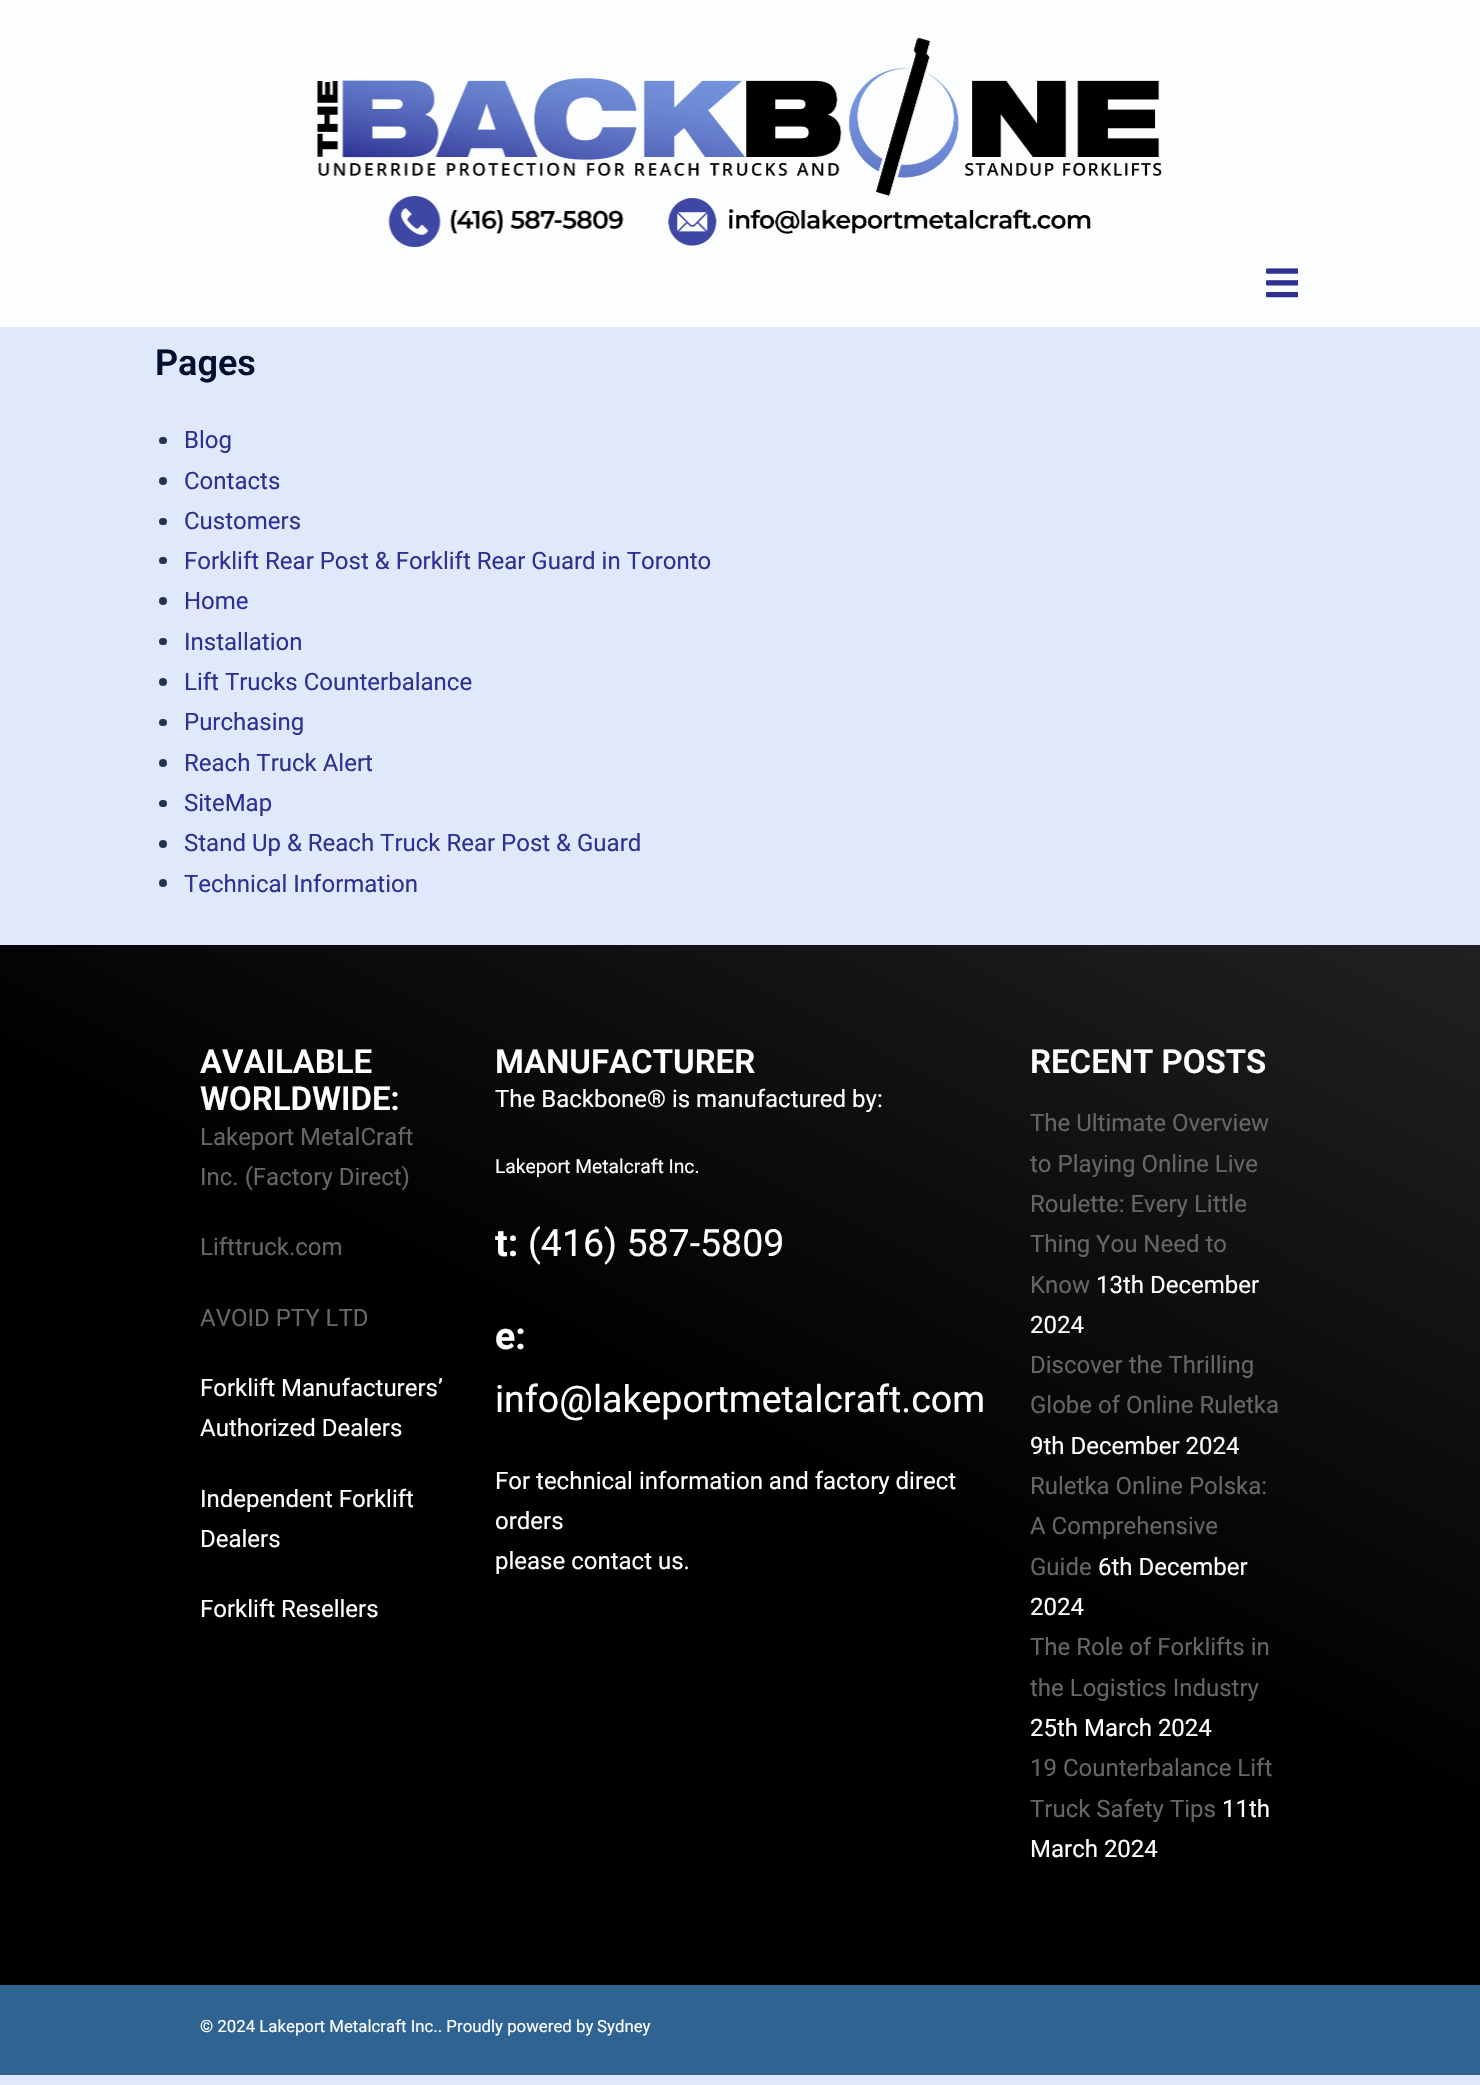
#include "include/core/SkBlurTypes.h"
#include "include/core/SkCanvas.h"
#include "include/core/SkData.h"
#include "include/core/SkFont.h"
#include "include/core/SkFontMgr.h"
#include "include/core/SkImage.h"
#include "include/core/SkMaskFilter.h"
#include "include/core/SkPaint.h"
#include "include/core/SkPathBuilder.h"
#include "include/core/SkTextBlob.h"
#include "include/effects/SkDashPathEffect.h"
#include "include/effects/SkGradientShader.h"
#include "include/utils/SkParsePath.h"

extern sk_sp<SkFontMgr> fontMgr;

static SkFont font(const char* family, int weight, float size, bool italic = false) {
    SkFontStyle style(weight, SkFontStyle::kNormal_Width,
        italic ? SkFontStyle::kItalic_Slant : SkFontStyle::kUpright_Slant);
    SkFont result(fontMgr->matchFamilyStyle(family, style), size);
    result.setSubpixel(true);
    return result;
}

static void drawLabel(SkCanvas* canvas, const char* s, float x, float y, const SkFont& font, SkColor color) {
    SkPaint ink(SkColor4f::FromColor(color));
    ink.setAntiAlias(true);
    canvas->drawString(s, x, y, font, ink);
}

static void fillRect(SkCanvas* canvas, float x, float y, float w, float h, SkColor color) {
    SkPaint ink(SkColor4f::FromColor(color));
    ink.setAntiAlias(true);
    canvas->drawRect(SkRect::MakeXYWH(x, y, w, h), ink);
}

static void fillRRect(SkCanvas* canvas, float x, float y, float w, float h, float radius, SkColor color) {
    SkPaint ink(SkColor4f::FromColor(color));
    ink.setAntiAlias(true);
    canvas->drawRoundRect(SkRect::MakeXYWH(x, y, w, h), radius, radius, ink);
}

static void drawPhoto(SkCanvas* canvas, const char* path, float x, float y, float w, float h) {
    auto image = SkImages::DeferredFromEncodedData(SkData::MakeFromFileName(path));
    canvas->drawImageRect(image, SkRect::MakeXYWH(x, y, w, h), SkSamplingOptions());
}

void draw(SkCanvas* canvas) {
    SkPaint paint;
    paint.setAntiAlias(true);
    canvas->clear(0xFFE0E8FC);
    fillRect(canvas, 0, 0, 1480, 327, 0xFFFCFDFF);
    drawPhoto(canvas, "assets/img1.png", 317, 37, 845, 210);
    drawPhoto(canvas, "assets/img2.png", 1266, 268, 32, 30);
    SkFont font1 = font("Roboto", 600, 36);
    drawLabel(canvas, "Pages", 155, 375, font1, 0xFF00102E);
    fillRRect(canvas, 159, 437, 8, 7, 3.5f, 0xFF233452);
    SkFont font2 = font("Roboto", 400, 24);
    drawLabel(canvas, "Blog", 184, 448, font2, 0xFF2E3192);
    paint.setColor(0xFF233452);
    canvas->drawCircle(163, 481, 4, paint);
    drawLabel(canvas, "Contacts", 184, 489, font2, 0xFF2E3192);
    fillRRect(canvas, 159, 518, 8, 7, 3.5f, 0xFF233452);
    drawLabel(canvas, "Customers", 184, 529, font2, 0xFF2E3192);
    fillRRect(canvas, 159, 557, 8, 7, 3.5f, 0xFF233452);
    drawLabel(canvas, "Forklift Rear Post & Forklift Rear Guard in Toronto", 184, 569, font2, 0xFF2E3192);
    canvas->drawCircle(163, 601, 4, paint);
    drawLabel(canvas, "Home", 184, 609, font2, 0xFF2E3192);
    fillRRect(canvas, 159, 638, 8, 7, 3.5f, 0xFF233452);
    drawLabel(canvas, "Installation", 184, 650, font2, 0xFF2E3192);
    canvas->drawCircle(163, 682, 4, paint);
    drawLabel(canvas, "Lift Trucks Counterbalance", 184, 690, font2, 0xFF2E3192);
    fillRRect(canvas, 159, 719, 8, 7, 3.5f, 0xFF233452);
    drawLabel(canvas, "Purchasing", 184, 730, font2, 0xFF2E3192);
    canvas->drawCircle(163, 763, 4, paint);
    drawLabel(canvas, "Reach Truck Alert", 184, 771, font2, 0xFF2E3192);
    fillRRect(canvas, 159, 800, 8, 7, 3.5f, 0xFF233452);
    drawLabel(canvas, "SiteMap", 184, 811, font2, 0xFF2E3192);
    canvas->drawCircle(163, 844, 4, paint);
    drawLabel(canvas, "Stand Up & Reach Truck Rear Post & Guard", 184, 851, font2, 0xFF2E3192);
    canvas->drawCircle(163, 883, 4, paint);
    drawLabel(canvas, "Technical Information", 184, 892, font2, 0xFF2E3192);
    {
        const SkColor colors[] = {0xFF000000, 0xFF212121};
        const float stops[] = {0.51f, 1};
        const SkPoint ends[] = {{377, 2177}, {1103, 753}};
        paint.setShader(SkGradientShader::MakeLinear(ends, colors, stops, 2, SkTileMode::kClamp));
        paint.setAlpha(255);
    }
    canvas->drawRect(SkRect::MakeXYWH(0, 945, 1480, 1040), paint);
    SkFont font3 = font("Roboto", 600, 33);
    drawLabel(canvas, "AVAILABLE", 200, 1073, font3, 0xFFFFFFFF);
    drawLabel(canvas, "WORLDWIDE:", 200, 1110, font3, 0xFFFFFFFF);
    drawLabel(canvas, "Lakeport MetalCraft", 200, 1145, font2, 0xFF666666);
    drawLabel(canvas, "Inc. (Factory Direct)", 200, 1185, font2, 0xFF666666);
    drawLabel(canvas, "Lifttruck.com", 200, 1255, font2, 0xFF666666);
    drawLabel(canvas, "AVOID PTY LTD", 200, 1326, font2, 0xFF666666);
    drawLabel(canvas, "Forklift Manufacturers’", 200, 1396, font2, 0xFFFFFFFF);
    drawLabel(canvas, "Authorized Dealers", 200, 1436, font2, 0xFFFFFFFF);
    drawLabel(canvas, "Independent Forklift", 200, 1507, font2, 0xFFFFFFFF);
    drawLabel(canvas, "Dealers", 200, 1547, font2, 0xFFFFFFFF);
    drawLabel(canvas, "Forklift Resellers", 200, 1617, font2, 0xFFFFFFFF);
    drawLabel(canvas, "MANUFACTURER", 495, 1073, font3, 0xFFFFFFFF);
    drawLabel(canvas, "The Backbone® is manufactured by:", 495, 1107, font2, 0xFFFFFFFF);
    SkFont font4 = font("Roboto", 400, 19.25f);
    drawLabel(canvas, "Lakeport Metalcraft Inc.", 495, 1173, font4, 0xFFFFFFFF);
    SkFont font5 = font("Roboto", 700, 37.5f);
    drawLabel(canvas, "t:", 495, 1256, font5, 0xFFFFFFFF);
    SkFont font6 = font("Roboto", 400, 37.5f);
    drawLabel(canvas, "(416) 587-5809", 528, 1256, font6, 0xFFFFFFFF);
    drawLabel(canvas, "e:", 495, 1349, font5, 0xFFFFFFFF);
    drawLabel(canvas, "info@lakeportmetalcraft.com", 495, 1412, font6, 0xFFFFFFFF);
    drawLabel(canvas, "For technical information and factory direct", 495, 1489, font2, 0xFFFFFFFF);
    drawLabel(canvas, "orders", 495, 1529, font2, 0xFFFFFFFF);
    drawLabel(canvas, "please contact us.", 495, 1569, font2, 0xFFFFFFFF);
    drawLabel(canvas, "RECENT POSTS", 1030, 1073, font3, 0xFFFFFFFF);
    drawLabel(canvas, "The Ultimate Overview", 1030, 1131, font2, 0xFF666666);
    drawLabel(canvas, "to Playing Online Live", 1030, 1172, font2, 0xFF666666);
    drawLabel(canvas, "Roulette: Every Little", 1030, 1212, font2, 0xFF666666);
    drawLabel(canvas, "Thing You Need to", 1030, 1252, font2, 0xFF666666);
    drawLabel(canvas, "Know", 1030, 1293, font2, 0xFF666666);
    drawLabel(canvas, "13th December", 1096, 1293, font2, 0xFFFFFFFF);
    drawLabel(canvas, "2024", 1030, 1333, font2, 0xFFFFFFFF);
    drawLabel(canvas, "Discover the Thrilling", 1030, 1373, font2, 0xFF666666);
    drawLabel(canvas, "Globe of Online Ruletka", 1030, 1413, font2, 0xFF666666);
    drawLabel(canvas, "9th December 2024", 1030, 1454, font2, 0xFFFFFFFF);
    drawLabel(canvas, "Ruletka Online Polska:", 1030, 1494, font2, 0xFF666666);
    drawLabel(canvas, "A Comprehensive", 1030, 1534, font2, 0xFF666666);
    drawLabel(canvas, "Guide", 1030, 1575, font2, 0xFF666666);
    drawLabel(canvas, "6th December", 1098, 1575, font2, 0xFFFFFFFF);
    drawLabel(canvas, "2024", 1030, 1615, font2, 0xFFFFFFFF);
    drawLabel(canvas, "The Role of Forklifts in", 1030, 1655, font2, 0xFF666666);
    drawLabel(canvas, "the Logistics Industry", 1030, 1696, font2, 0xFF666666);
    drawLabel(canvas, "25th March 2024", 1030, 1736, font2, 0xFFFFFFFF);
    drawLabel(canvas, "19 Counterbalance Lift", 1030, 1776, font2, 0xFF666666);
    drawLabel(canvas, "Truck Safety Tips", 1030, 1817, font2, 0xFF666666);
    drawLabel(canvas, "11th", 1222, 1817, font2, 0xFFFFFFFF);
    drawLabel(canvas, "March 2024", 1030, 1857, font2, 0xFFFFFFFF);
    fillRect(canvas, 0, 1985, 1480, 90, 0xFF2E6392);
    SkFont font7 = font("Roboto", 400, 16.8f);
    drawLabel(canvas, "© 2024 Lakeport Metalcraft Inc.. Proudly powered by", 200, 2032, font7, 0xFFFFFFFF);
    drawLabel(canvas, "Sydney", 597, 2032, font7, 0xFFFFFFFF);
}
